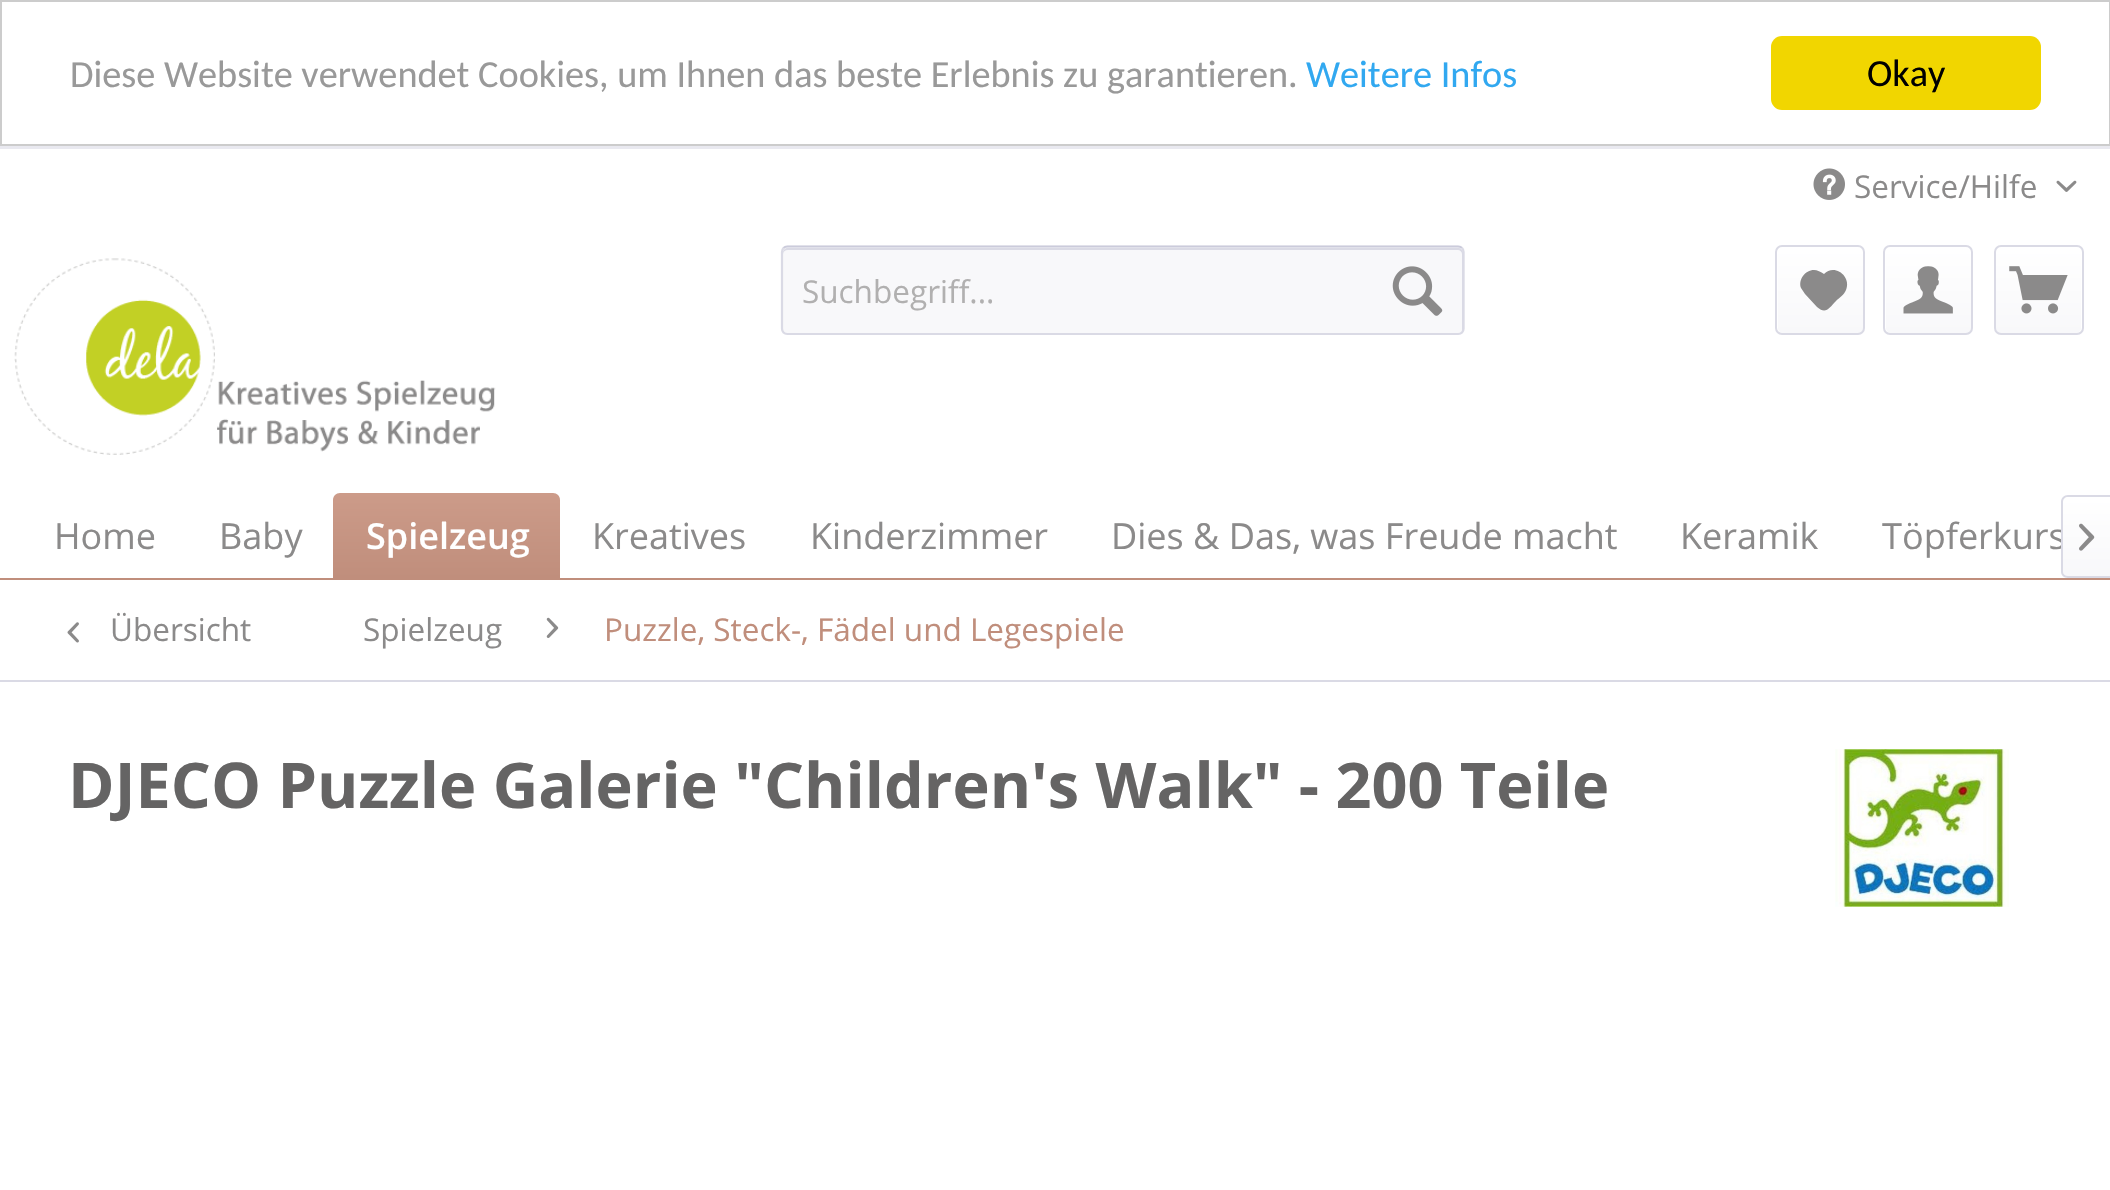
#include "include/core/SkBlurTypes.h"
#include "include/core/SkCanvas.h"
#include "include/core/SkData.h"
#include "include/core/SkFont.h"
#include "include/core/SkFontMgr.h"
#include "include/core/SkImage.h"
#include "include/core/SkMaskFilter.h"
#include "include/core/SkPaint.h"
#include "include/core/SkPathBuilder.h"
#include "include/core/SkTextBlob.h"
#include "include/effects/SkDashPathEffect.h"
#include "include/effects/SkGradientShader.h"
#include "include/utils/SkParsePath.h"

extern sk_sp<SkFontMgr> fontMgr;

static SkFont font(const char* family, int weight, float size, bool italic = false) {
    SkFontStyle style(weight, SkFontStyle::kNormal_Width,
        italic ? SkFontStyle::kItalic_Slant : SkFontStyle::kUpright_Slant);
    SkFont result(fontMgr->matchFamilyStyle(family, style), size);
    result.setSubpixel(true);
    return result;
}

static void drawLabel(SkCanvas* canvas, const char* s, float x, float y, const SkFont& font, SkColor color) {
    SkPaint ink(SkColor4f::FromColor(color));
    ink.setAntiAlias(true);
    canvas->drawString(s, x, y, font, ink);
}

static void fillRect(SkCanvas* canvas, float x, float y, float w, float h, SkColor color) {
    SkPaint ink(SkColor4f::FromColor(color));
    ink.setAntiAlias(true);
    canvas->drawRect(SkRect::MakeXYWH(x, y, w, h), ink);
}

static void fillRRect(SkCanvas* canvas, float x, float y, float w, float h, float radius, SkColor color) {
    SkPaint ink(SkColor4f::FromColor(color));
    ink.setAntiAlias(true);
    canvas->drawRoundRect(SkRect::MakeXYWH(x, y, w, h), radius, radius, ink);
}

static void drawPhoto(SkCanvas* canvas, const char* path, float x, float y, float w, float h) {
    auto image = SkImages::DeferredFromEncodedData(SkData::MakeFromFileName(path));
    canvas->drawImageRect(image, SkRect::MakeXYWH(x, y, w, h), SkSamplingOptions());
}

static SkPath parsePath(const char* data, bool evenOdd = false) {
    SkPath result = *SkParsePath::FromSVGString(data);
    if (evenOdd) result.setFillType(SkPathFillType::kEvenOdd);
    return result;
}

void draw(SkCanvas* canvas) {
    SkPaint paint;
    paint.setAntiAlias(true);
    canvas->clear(0xFFE9E9F0);
    paint.setColor(0xFFFFFFFF);
    canvas->drawRect(SkRect::MakeXYWH(1, 1, 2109, 144), paint);
    paint.setStroke(true);
    paint.setStrokeWidth(2);
    paint.setColor(0xFFCCCCCC);
    canvas->drawRect(SkRect::MakeXYWH(1, 1, 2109, 144), paint);
    SkFont font1 = font("Carlito", 400, 38.25f);
    drawLabel(canvas, "Diese Website verwendet Cookies, um Ihnen das beste Erlebnis zu garantieren.", 70, 87, font1, 0xFF999999);
    drawLabel(canvas, "Weitere Infos", 1306, 87, font1, 0xFF31A8F0);
    fillRRect(canvas, 1771, 36, 270, 74, 11, 0xFFF1D600);
    drawLabel(canvas, "Okay", 1867, 86, font1, 0xFF000000);
    fillRect(canvas, 0, 149, 2110, 344, 0xFFFFFFFF);
    drawPhoto(canvas, "assets/img1.png", 1813, 168, 32, 32);
    SkFont font2 = font("Open Sans", 400, 31.5f);
    drawLabel(canvas, "Service/Hilfe", 1854, 198, font2, 0xFF8B8A8A);
    drawPhoto(canvas, "assets/img2.png", 2056, 180, 21, 12);
    drawPhoto(canvas, "assets/img3.png", 14, 258, 482, 197);
    fillRRect(canvas, 781, 245, 684, 90, 7, 0xFFF8F8FA);
    paint.setStroke(false);
    paint.setColor(0xFFDADAE5);
    canvas->drawPath(parsePath("M788 250H1458C1460 250 1462 252 1462 254V331C1463 330 1463 329 1463 328V253C1463 250 1461 248 1458 248H788C785 248 783 250 783 253V254C783 252 785 250 788 250Z"), paint);
    paint.setStroke(true);
    paint.setStrokeWidth(2.2f);
    paint.setColor(0xFFCBCBDB);
    canvas->drawPath(parsePath("M783.5 248C784.5 247 786 246.5 787.5 246.5H1458C1459.5 246.5 1461 247 1462 248"), paint);
    paint.setColor(0xFFDADAE5);
    canvas->drawPath(parsePath("M1462 248C1463 249 1463.5 250.5 1463.5 252V328.5C1463.5 330 1463 331.5 1462 332.5C1461 333.5 1459.5 334 1458 334H787.5C786 334 784.5 333.5 783.5 332.5C782.5 331.5 782 330 782 328.5V252C782 250.5 782.5 249 783.5 248"), paint);
    drawLabel(canvas, "Suchbegriff...", 802, 303, font2, 0xFFB1B0B0);
    drawPhoto(canvas, "assets/img4.png", 1392, 266, 51, 50);
    paint.setStroke(false);
    {
        const SkColor colors[] = {0xFFFFFFFF, 0xFFF8F8FA};
        const float stops[] = {0, 1};
        const SkPoint ends[] = {{1820, 248}, {1820, 333}};
        paint.setShader(SkGradientShader::MakeLinear(ends, colors, stops, 2, SkTileMode::kClamp));
        paint.setAlpha(255);
    }
    canvas->drawRoundRect(SkRect::MakeXYWH(1778, 248, 85, 85), 5, 5, paint);
    paint.setStroke(true);
    paint.setStrokeWidth(2);
    paint.setShader(nullptr);
    paint.setColor(0xFFDADAE5);
    canvas->drawRoundRect(SkRect::MakeXYWH(1776, 246, 88, 88), 6, 6, paint);
    paint.setStroke(false);
    paint.setColor(0xFF8B8A8A);
    canvas->drawPath(parsePath("M1814 270C1805 270 1798 280 1801 288L1805 294L1817 307C1826 315 1829 308 1836 301C1839 298 1844 295 1846 290C1852 276 1834 263 1824 274C1821 272 1817 270 1814 270Z"), paint);
    {
        const SkColor colors[] = {0xFFFFFFFF, 0xFFF8F8FA};
        const float stops[] = {0, 1};
        const SkPoint ends[] = {{1928, 248}, {1928, 333}};
        paint.setShader(SkGradientShader::MakeLinear(ends, colors, stops, 2, SkTileMode::kClamp));
        paint.setAlpha(255);
    }
    canvas->drawRoundRect(SkRect::MakeXYWH(1886, 248, 85, 85), 5, 5, paint);
    paint.setStroke(true);
    paint.setShader(nullptr);
    paint.setColor(0xFFDADAE5);
    canvas->drawRoundRect(SkRect::MakeXYWH(1884, 246, 88, 88), 6, 6, paint);
    drawPhoto(canvas, "assets/img5.png", 1903, 266, 50, 48);
    paint.setStroke(false);
    {
        const SkColor colors[] = {0xFFFFFFFF, 0xFFF8F8FA};
        const float stops[] = {0, 1};
        const SkPoint ends[] = {{2039, 248}, {2039, 333}};
        paint.setShader(SkGradientShader::MakeLinear(ends, colors, stops, 2, SkTileMode::kClamp));
        paint.setAlpha(255);
    }
    canvas->drawRoundRect(SkRect::MakeXYWH(1996, 248, 85, 85), 5, 5, paint);
    paint.setStroke(true);
    paint.setShader(nullptr);
    paint.setColor(0xFFDADAE5);
    canvas->drawRoundRect(SkRect::MakeXYWH(1995, 246, 88, 88), 6, 6, paint);
    drawPhoto(canvas, "assets/img6.png", 2009, 266, 59, 48);
    fillRect(canvas, 0, 493, 2110, 697, 0xFFFFFFFF);
    fillRect(canvas, 0, 578, 2110, 2, 0xFFC08E7C);
    SkFont font3 = font("Open Sans", 400, 36);
    drawLabel(canvas, "Home", 54, 549, font3, 0xFF8B8A8A);
    drawLabel(canvas, "Baby", 219, 549, font3, 0xFF8B8A8A);
    paint.setStroke(false);
    {
        const SkColor colors[] = {0xFFCC9B89, 0xFFC08E7C};
        const float stops[] = {0, 1};
        const SkPoint ends[] = {{447, 493}, {447, 578}};
        paint.setShader(SkGradientShader::MakeLinear(ends, colors, stops, 2, SkTileMode::kClamp));
        paint.setAlpha(255);
    }
    canvas->drawPath(parsePath("M340 493H553C557 493 560 496 560 500V578H333V500C333 496 336 493 340 493Z"), paint);
    SkFont font4 = font("Open Sans", 600, 36);
    drawLabel(canvas, "Spielzeug", 366, 549, font4, 0xFFFFFFFF);
    drawLabel(canvas, "Kreatives", 592, 549, font3, 0xFF8B8A8A);
    drawLabel(canvas, "Kinderzimmer", 810, 549, font3, 0xFF8B8A8A);
    drawLabel(canvas, "Dies & Das, was Freude macht", 1111, 549, font3, 0xFF8B8A8A);
    drawLabel(canvas, "Keramik", 1680, 549, font3, 0xFF8B8A8A);
    drawLabel(canvas, "Töpferkurs", 1882, 549, font3, 0xFF8B8A8A);
    {
        const SkColor colors[] = {0xFFFFFFFF, 0xFFF8F8FA};
        const float stops[] = {0, 1};
        const SkPoint ends[] = {{2087, 497}, {2087, 576}};
        paint.setShader(SkGradientShader::MakeLinear(ends, colors, stops, 2, SkTileMode::kClamp));
        paint.setAlpha(255);
    }
    canvas->drawPath(parsePath("M2068 497H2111V576H2068C2065 576 2063 574 2063 571V502C2063 499 2065 497 2068 497Z"), paint);
    paint.setShader(nullptr);
    paint.setColor(0xFFDADAE5);
    canvas->drawPath(parsePath("M2068 495H2110V578H2068C2064 578 2061 575 2061 572V502C2061 498 2064 495 2068 495ZM2068 497H2110V576H2068C2065 576 2063 574 2063 572V502C2063 499 2065 497 2068 497Z", true), paint);
    drawPhoto(canvas, "assets/img7.png", 2079, 523, 16, 28);
    fillRect(canvas, 0, 680, 2110, 2, 0xFFDADAE5);
    drawPhoto(canvas, "assets/img8.png", 67, 622, 12, 21);
    drawLabel(canvas, "Übersicht", 110, 641, font2, 0xFF8B8A8A);
    drawLabel(canvas, "Spielzeug", 363, 641, font2, 0xFF8B8A8A);
    drawPhoto(canvas, "assets/img9.png", 546, 617, 13, 21);
    drawLabel(canvas, "Puzzle, Steck-, Fädel und Legespiele", 604, 641, font2, 0xFFC08E7C);
    SkFont font5 = font("Open Sans", 700, 63);
    drawLabel(canvas, "DJECO Puzzle Galerie \"Children's Walk\" - 200 Teile", 68, 808, font5, 0xFF656464);
    drawPhoto(canvas, "assets/img10.png", 1835, 749, 174, 158);
}
